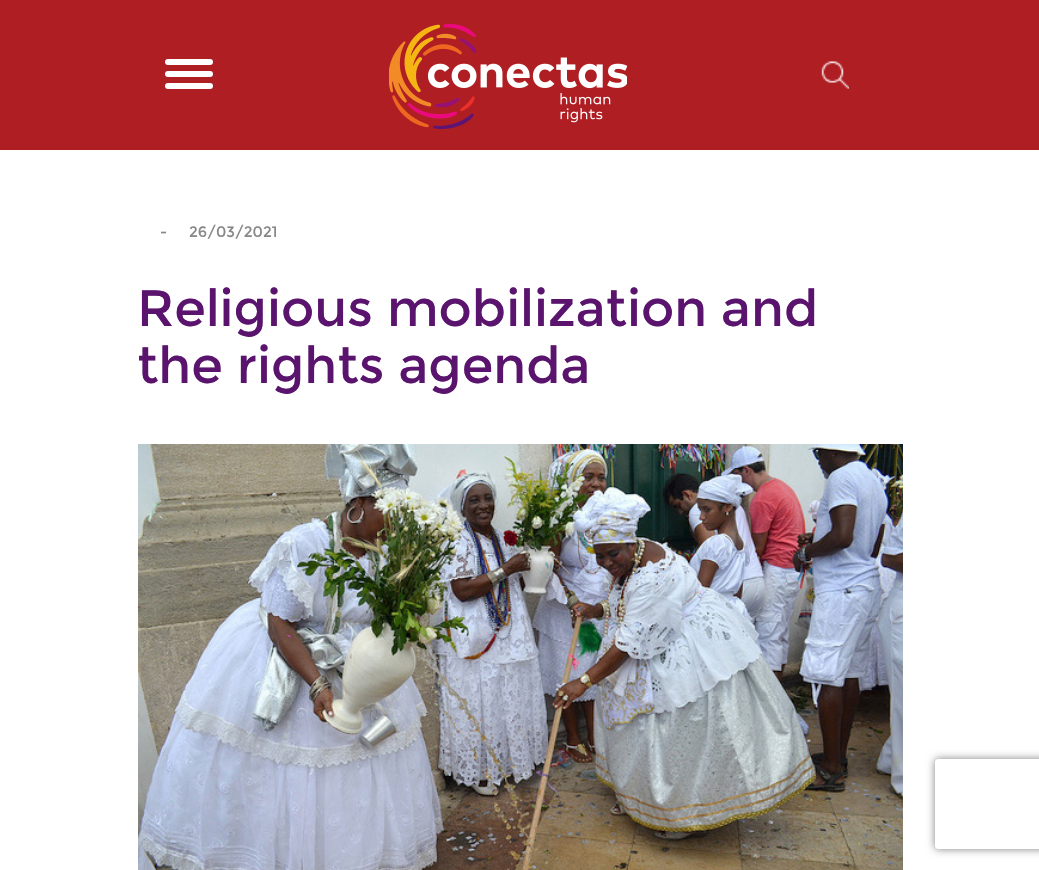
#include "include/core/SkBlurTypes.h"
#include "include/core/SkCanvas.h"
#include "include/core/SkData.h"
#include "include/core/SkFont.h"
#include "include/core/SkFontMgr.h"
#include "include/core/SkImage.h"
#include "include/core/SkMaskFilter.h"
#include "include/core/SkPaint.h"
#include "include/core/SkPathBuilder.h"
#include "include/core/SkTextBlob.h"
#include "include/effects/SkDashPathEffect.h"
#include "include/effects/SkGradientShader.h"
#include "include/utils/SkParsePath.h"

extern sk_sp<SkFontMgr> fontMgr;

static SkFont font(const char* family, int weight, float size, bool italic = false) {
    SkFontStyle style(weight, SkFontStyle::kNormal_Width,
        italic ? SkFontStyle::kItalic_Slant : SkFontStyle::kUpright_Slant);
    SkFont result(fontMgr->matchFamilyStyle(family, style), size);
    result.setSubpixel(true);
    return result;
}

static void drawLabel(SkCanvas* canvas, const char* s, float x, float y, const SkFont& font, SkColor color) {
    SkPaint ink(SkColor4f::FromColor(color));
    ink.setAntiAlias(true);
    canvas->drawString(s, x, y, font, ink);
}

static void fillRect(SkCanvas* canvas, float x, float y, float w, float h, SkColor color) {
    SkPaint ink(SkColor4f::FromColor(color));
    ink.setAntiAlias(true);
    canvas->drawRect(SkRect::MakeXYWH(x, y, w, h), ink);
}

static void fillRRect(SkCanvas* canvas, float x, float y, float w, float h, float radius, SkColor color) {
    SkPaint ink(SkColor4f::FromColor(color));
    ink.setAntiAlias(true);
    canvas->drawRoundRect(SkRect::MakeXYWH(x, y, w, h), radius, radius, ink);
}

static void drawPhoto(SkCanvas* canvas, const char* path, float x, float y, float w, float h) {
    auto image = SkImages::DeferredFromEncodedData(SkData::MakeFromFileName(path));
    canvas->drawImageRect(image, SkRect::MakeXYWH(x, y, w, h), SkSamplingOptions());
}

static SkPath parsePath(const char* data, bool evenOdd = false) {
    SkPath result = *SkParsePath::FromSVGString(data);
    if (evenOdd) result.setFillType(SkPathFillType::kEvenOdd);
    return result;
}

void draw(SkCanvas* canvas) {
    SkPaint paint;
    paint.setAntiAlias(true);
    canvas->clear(0xFFFFFFFF);
    fillRect(canvas, 0, 0, 1039, 150, 0xFFAF1E23);
    fillRRect(canvas, 165, 59, 48, 6, 3, 0xFFFFFFFF);
    fillRRect(canvas, 165, 71, 48, 6, 3, 0xFFFFFFFF);
    fillRRect(canvas, 165, 83, 48, 6, 3, 0xFFFFFFFF);
    drawPhoto(canvas, "assets/img1.png", 389, 24, 238, 105);
    drawPhoto(canvas, "assets/img2.png", 821, 61, 28, 28);
    SkFont font1 = font("Montserrat", 400, 15);
    drawLabel(canvas, "-", 160, 237, font1, 0xFF888888);
    drawLabel(canvas, "26/03/2021", 189, 237, font1, 0xFF888888);
    SkFont font2 = font("Montserrat", 400, 51);
    drawLabel(canvas, "Religious mobilization and", 137, 326, font2, 0xFF5A146E);
    drawLabel(canvas, "the rights agenda", 137, 383, font2, 0xFF5A146E);
    drawPhoto(canvas, "assets/img3.png", 138, 444, 765, 426);
    canvas->save();
    canvas->clipPath(parsePath("M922 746H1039V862H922ZM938 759H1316C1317.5 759 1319 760.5 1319 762V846C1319 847.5 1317.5 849 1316 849H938C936.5 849 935 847.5 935 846V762C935 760.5 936.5 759 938 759Z", true), true);
    paint.setColor(0xFF808080);
    paint.setMaskFilter(SkMaskFilter::MakeBlur(kNormal_SkBlurStyle, 4));
    canvas->drawRoundRect(SkRect::MakeXYWH(935, 759, 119, 90), 3, 3, paint);
    paint.setMaskFilter(nullptr);
    canvas->restore();
}
